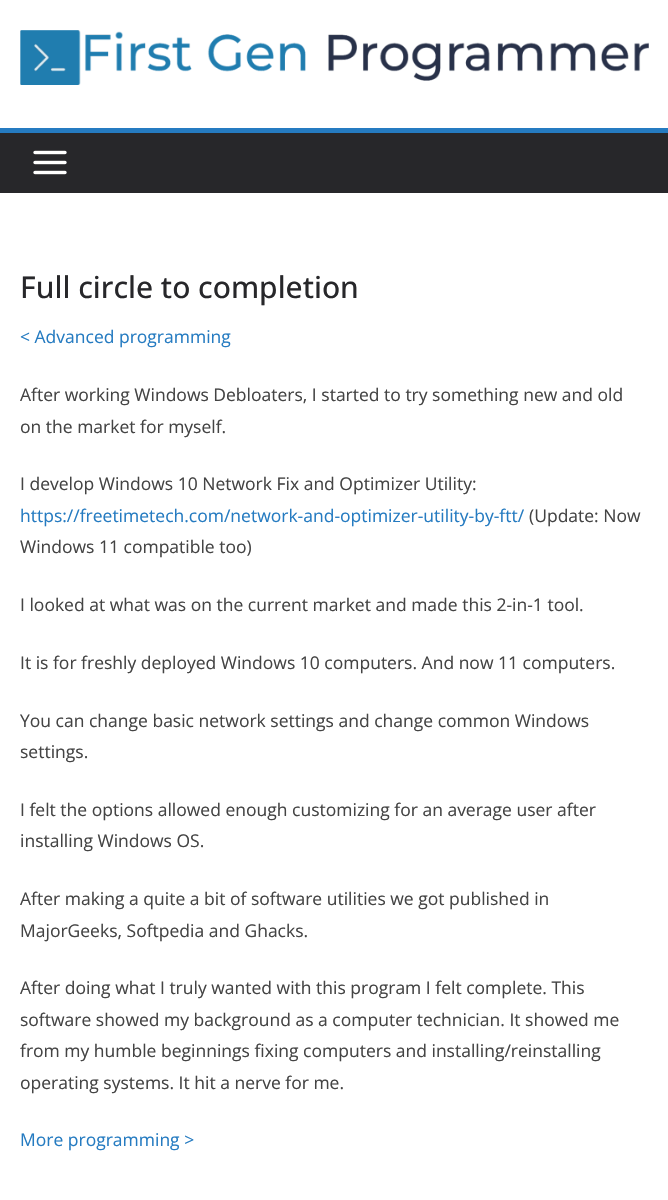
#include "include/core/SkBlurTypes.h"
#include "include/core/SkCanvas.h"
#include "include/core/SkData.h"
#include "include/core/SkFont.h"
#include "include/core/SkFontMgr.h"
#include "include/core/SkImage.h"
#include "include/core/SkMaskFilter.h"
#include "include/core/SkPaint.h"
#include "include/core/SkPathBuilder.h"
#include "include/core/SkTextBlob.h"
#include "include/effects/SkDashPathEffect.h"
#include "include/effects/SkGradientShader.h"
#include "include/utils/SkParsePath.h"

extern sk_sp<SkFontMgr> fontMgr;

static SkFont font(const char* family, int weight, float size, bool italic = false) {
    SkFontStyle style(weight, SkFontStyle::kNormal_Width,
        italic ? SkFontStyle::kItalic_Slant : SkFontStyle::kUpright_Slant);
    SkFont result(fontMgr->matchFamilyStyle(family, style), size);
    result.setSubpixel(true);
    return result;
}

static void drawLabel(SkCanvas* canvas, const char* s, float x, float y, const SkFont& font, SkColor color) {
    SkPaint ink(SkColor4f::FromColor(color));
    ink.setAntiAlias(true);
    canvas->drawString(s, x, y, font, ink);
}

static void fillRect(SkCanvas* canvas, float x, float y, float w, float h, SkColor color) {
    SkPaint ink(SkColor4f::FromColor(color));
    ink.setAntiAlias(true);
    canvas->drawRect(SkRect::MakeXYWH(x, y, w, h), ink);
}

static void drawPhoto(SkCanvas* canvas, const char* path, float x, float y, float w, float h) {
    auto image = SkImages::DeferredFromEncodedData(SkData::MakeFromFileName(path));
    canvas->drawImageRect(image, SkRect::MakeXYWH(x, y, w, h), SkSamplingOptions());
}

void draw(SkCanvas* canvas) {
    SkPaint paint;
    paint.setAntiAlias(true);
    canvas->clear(0xFFFFFFFF);
    drawPhoto(canvas, "assets/img1.png", 20, 30, 629, 55);
    fillRect(canvas, 0, 133, 668, 60, 0xFF27272A);
    fillRect(canvas, 0, 128, 668, 5, 0xFF257BC1);
    drawPhoto(canvas, "assets/img2.png", 33, 150, 34, 25);
    SkFont font1 = font("Open Sans", 500, 30);
    drawLabel(canvas, "Full circle to completion", 20, 298, font1, 0xFF27272A);
    SkFont font2 = font("Open Sans", 400, 17.5f);
    drawLabel(canvas, "< Advanced programming", 20, 343, font2, 0xFF257BC1);
    drawLabel(canvas, "After working Windows Debloaters, I started to try something new and old", 20, 401, font2, 0xFF444444);
    drawLabel(canvas, "on the market for myself.", 20, 433, font2, 0xFF444444);
    drawLabel(canvas, "I develop Windows 10 Network Fix and Optimizer Utility:", 20, 490, font2, 0xFF444444);
    drawLabel(canvas, "https://freetimetech.com/network-and-optimizer-utility-by-ftt/", 20, 522, font2, 0xFF257BC1);
    drawLabel(canvas, "(Update: Now", 529, 522, font2, 0xFF444444);
    drawLabel(canvas, "Windows 11 compatible too)", 20, 553, font2, 0xFF444444);
    drawLabel(canvas, "I looked at what was on the current market and made this 2-in-1 tool.", 20, 611, font2, 0xFF444444);
    drawLabel(canvas, "It is for freshly deployed Windows 10 computers. And now 11 computers.", 20, 669, font2, 0xFF444444);
    drawLabel(canvas, "You can change basic network settings and change common Windows", 20, 727, font2, 0xFF444444);
    drawLabel(canvas, "settings.", 20, 758, font2, 0xFF444444);
    drawLabel(canvas, "I felt the options allowed enough customizing for an average user after", 20, 816, font2, 0xFF444444);
    drawLabel(canvas, "installing Windows OS.", 20, 847, font2, 0xFF444444);
    drawLabel(canvas, "After making a quite a bit of software utilities we got published in", 20, 905, font2, 0xFF444444);
    drawLabel(canvas, "MajorGeeks, Softpedia and Ghacks.", 20, 937, font2, 0xFF444444);
    drawLabel(canvas, "After doing what I truly wanted with this program I felt complete. This", 20, 994, font2, 0xFF444444);
    drawLabel(canvas, "software showed my background as a computer technician. It showed me", 20, 1026, font2, 0xFF444444);
    drawLabel(canvas, "from my humble beginnings fixing computers and installing/reinstalling", 20, 1057, font2, 0xFF444444);
    drawLabel(canvas, "operating systems. It hit a nerve for me.", 20, 1089, font2, 0xFF444444);
    drawLabel(canvas, "More programming >", 20, 1146, font2, 0xFF257BC1);
}
